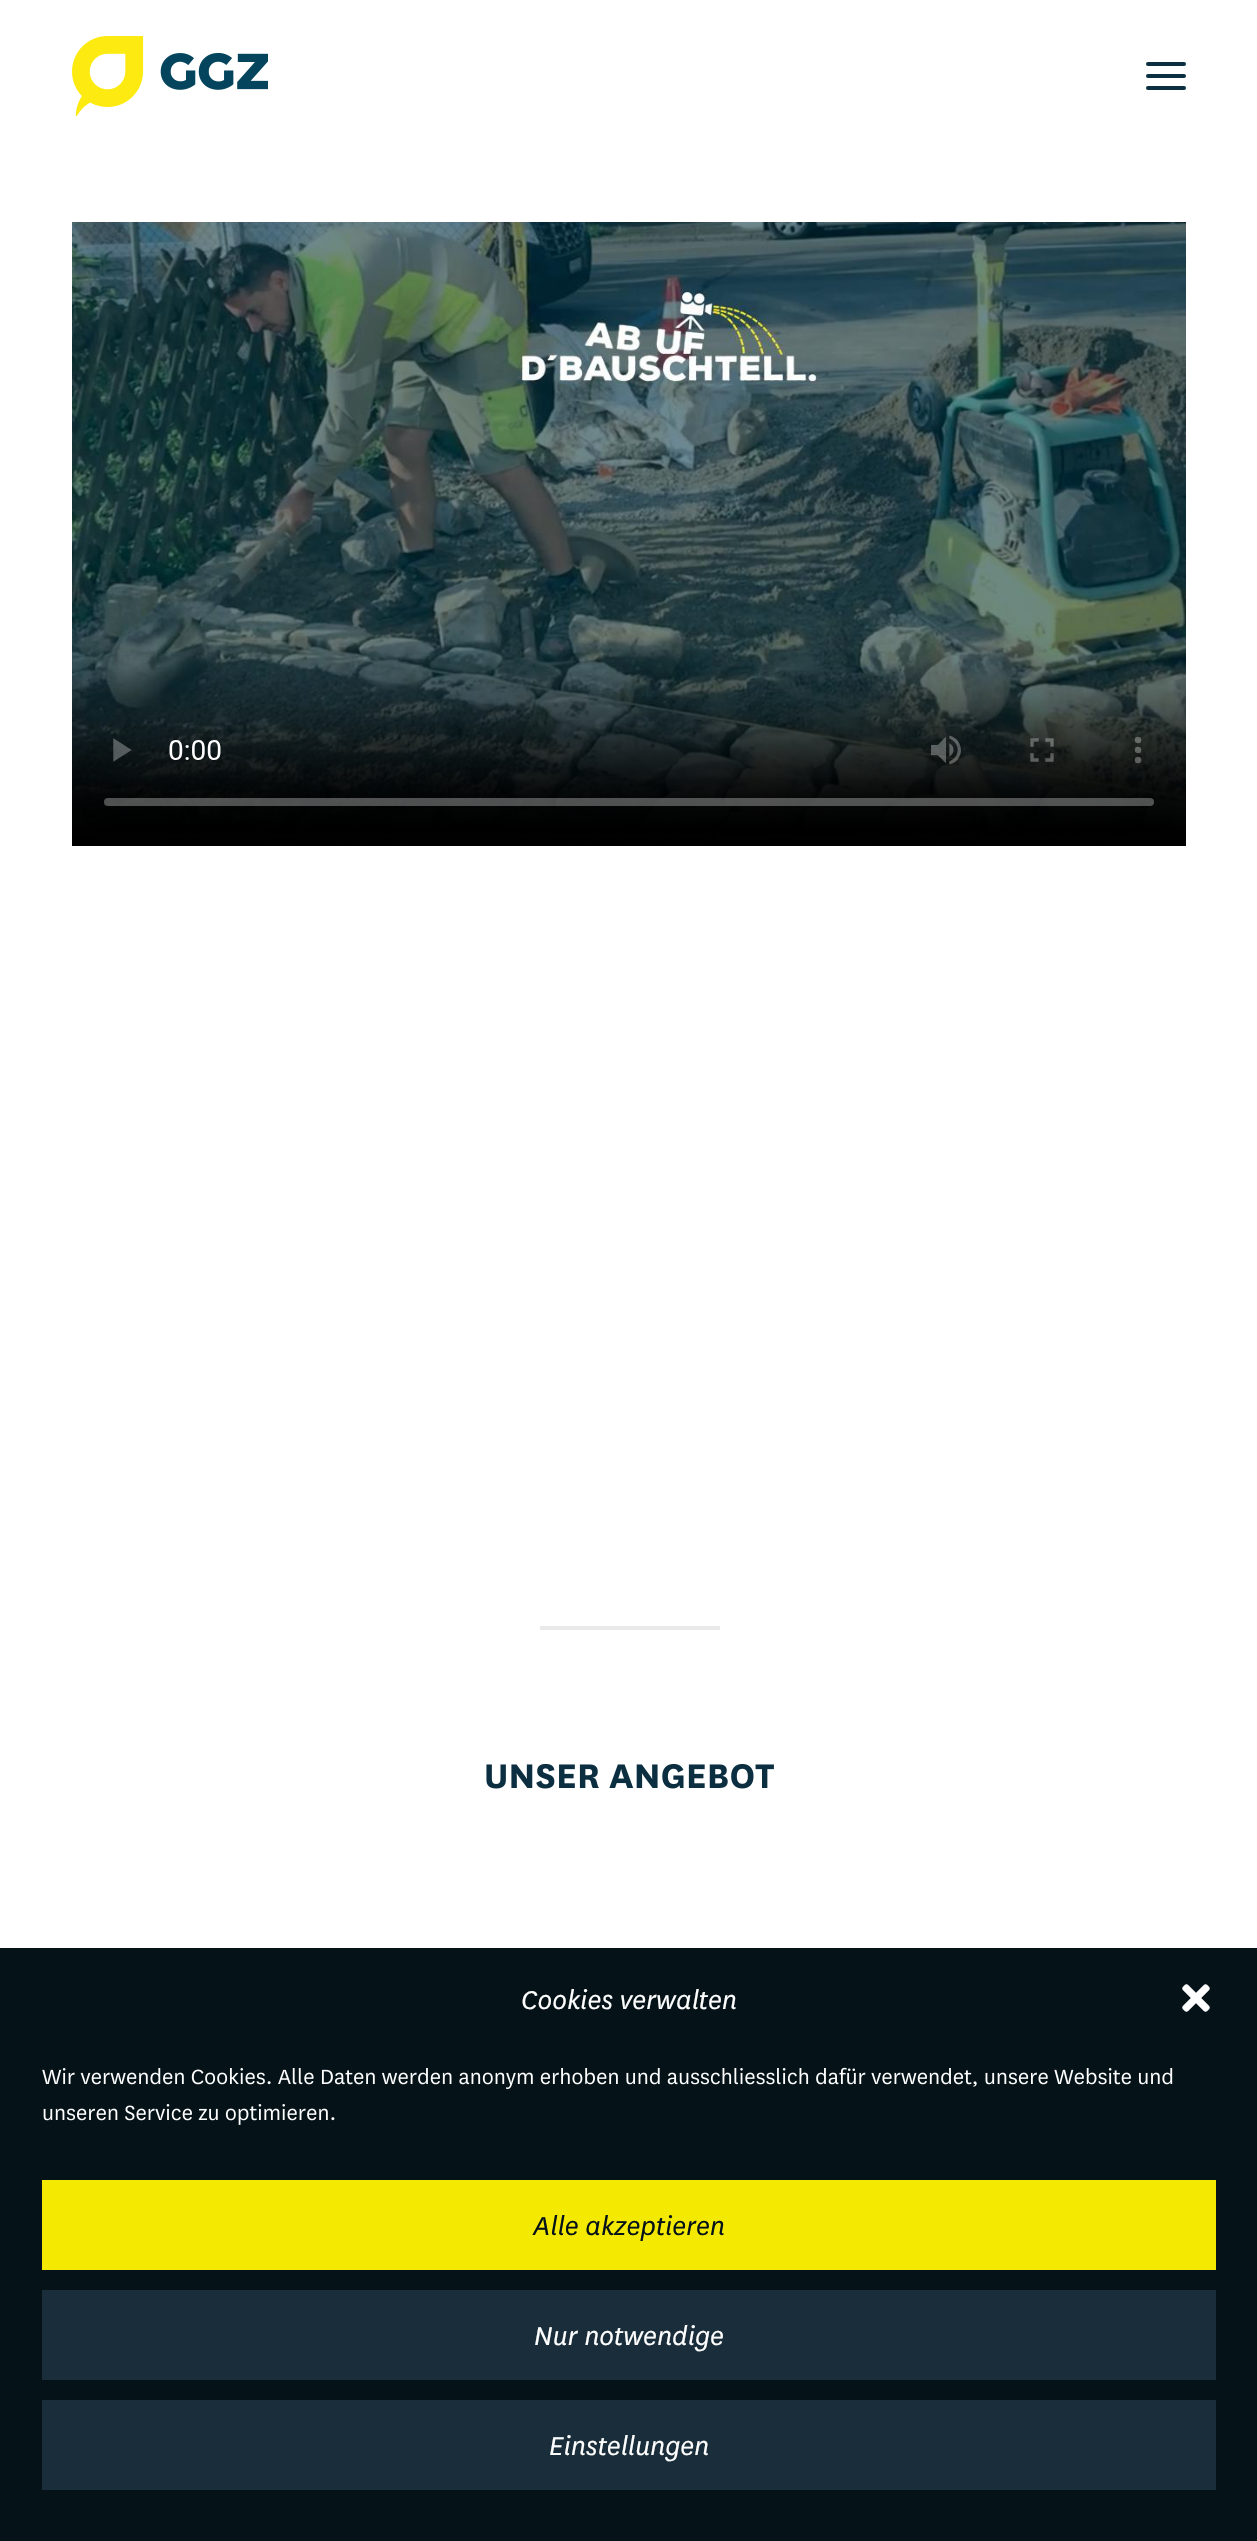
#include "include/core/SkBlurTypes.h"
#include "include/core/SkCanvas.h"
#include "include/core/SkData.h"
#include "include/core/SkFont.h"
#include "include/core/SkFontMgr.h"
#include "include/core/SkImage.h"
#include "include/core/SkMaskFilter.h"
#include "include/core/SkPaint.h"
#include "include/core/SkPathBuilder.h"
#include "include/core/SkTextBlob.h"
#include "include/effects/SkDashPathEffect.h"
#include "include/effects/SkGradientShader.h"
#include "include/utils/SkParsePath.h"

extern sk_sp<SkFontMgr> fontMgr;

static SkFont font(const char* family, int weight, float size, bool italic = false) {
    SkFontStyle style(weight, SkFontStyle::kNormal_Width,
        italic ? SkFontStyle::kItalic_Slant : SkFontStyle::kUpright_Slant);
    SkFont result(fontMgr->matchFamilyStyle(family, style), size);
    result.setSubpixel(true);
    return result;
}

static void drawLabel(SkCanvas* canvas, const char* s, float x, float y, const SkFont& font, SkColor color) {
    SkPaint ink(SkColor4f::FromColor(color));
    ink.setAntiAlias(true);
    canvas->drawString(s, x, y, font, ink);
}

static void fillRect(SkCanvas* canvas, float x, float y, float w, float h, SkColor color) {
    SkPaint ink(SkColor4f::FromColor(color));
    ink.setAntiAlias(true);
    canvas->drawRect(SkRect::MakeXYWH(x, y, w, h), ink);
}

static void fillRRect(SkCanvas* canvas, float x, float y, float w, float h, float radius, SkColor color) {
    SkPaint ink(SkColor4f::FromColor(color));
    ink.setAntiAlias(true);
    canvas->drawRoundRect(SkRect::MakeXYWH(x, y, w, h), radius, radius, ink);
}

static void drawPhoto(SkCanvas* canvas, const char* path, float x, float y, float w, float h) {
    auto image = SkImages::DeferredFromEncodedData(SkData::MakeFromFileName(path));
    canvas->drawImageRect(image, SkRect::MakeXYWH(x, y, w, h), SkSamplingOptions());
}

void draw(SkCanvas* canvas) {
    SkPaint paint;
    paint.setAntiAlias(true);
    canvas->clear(0xFFFFFFFF);
    drawPhoto(canvas, "assets/img1.png", 72, 36, 196, 80);
    fillRRect(canvas, 1146, 74, 40, 4, 2, 0xFF0B2F40);
    fillRRect(canvas, 1146, 62, 40, 4, 2, 0xFF0B2F40);
    fillRRect(canvas, 1146, 86, 40, 4, 2, 0xFF0B2F40);
    drawPhoto(canvas, "assets/img2.png", 72, 222, 1114, 624);
    fillRect(canvas, 540, 1626, 180, 4, 0xFFEAEAEA);
    drawPhoto(canvas, "assets/img3.png", 486, 1763, 288, 26);
    fillRect(canvas, 2, 1948, 1254, 592, 0xFF051319);
    fillRect(canvas, 1256, 1948, 1, 593, 0xFF051319);
    fillRect(canvas, 0, 2540, 1257, 1, 0xFF051319);
    fillRect(canvas, 0, 1948, 2, 593, 0xFF051319);
    SkFont font1 = font("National", 400, 30, true);
    drawLabel(canvas, "Cookies verwalten", 521, 2009, font1, 0xFFFFFFFF);
    drawPhoto(canvas, "assets/img4.png", 1182, 1984, 28, 28);
    drawPhoto(canvas, "assets/img5.png", 42, 2067, 1131, 22);
    drawPhoto(canvas, "assets/img6.png", 43, 2104, 292, 21);
    fillRect(canvas, 42, 2180, 1174, 90, 0xFFF4E900);
    drawLabel(canvas, "Alle akzeptieren", 533, 2235, font1, 0xFF051319);
    fillRect(canvas, 42, 2290, 1174, 90, 0xFF192E3A);
    drawLabel(canvas, "Nur notwendige", 534, 2345, font1, 0xFFFFFFFF);
    fillRect(canvas, 42, 2400, 1174, 90, 0xFF192E3A);
    drawLabel(canvas, "Einstellungen", 549, 2455, font1, 0xFFFFFFFF);
}
